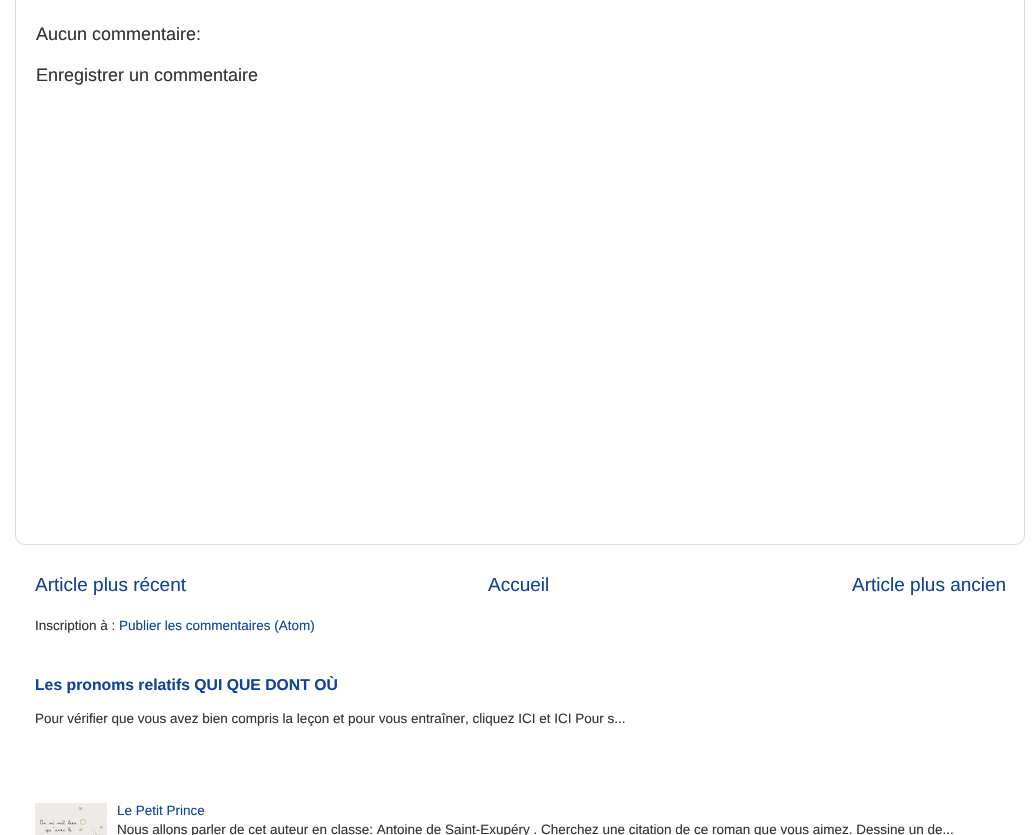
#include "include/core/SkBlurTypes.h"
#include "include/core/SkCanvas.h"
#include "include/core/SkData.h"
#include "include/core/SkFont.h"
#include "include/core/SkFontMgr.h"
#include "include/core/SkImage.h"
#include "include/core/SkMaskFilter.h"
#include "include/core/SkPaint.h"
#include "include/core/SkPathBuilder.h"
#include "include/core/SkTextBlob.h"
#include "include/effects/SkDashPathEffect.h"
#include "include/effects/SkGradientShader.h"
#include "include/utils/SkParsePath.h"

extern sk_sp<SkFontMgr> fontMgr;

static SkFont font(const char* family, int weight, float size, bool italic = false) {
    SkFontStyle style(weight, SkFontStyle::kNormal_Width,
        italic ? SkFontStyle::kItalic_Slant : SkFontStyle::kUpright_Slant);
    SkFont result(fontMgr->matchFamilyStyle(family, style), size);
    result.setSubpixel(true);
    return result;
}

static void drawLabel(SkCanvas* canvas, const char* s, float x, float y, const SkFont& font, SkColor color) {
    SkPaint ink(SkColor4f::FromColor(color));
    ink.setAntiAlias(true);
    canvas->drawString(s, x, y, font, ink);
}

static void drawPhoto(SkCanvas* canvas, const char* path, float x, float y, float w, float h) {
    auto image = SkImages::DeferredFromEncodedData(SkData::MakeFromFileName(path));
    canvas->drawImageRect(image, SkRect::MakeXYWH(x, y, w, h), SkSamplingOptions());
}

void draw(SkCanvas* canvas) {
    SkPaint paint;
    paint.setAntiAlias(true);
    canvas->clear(0xFFFFFFFF);
    paint.setStroke(true);
    paint.setStrokeWidth(1);
    paint.setColor(0xFFDDDDDD);
    canvas->drawRoundRect(SkRect::MakeXYWH(15.5f, -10.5f, 1009, 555), 9.5f, 9.5f, paint);
    SkFont font1 = font("Liberation Sans", 400, 18);
    drawLabel(canvas, "Aucun commentaire:", 36, 40, font1, 0xFF333333);
    drawLabel(canvas, "Enregistrer un commentaire", 36, 81, font1, 0xFF333333);
    SkFont font2 = font("Liberation Sans", 400, 19);
    drawLabel(canvas, "Article plus récent", 35, 591, font2, 0xFF114499);
    drawLabel(canvas, "Accueil", 488, 591, font2, 0xFF114499);
    drawLabel(canvas, "Article plus ancien", 852, 591, font2, 0xFF114499);
    SkFont font3 = font("Liberation Sans", 400, 13.5f);
    drawLabel(canvas, "Inscription à :", 35, 630, font3, 0xFF333333);
    drawLabel(canvas, "Publier les commentaires (Atom)", 119, 630, font3, 0xFF114499);
    SkFont font4 = font("Liberation Sans", 700, 15.75f);
    drawLabel(canvas, "Les pronoms relatifs QUI QUE DONT OÙ", 35, 690, font4, 0xFF114499);
    drawLabel(canvas, "Pour vérifier que vous avez bien compris la leçon et pour vous entraîner, cliquez ICI et ICI Pour s...", 35, 723, font3, 0xFF333333);
    drawPhoto(canvas, "assets/img1.png", 35, 803, 72, 32);
    drawLabel(canvas, "Le Petit Prince", 117, 815, font3, 0xFF114499);
    drawLabel(canvas, "Nous allons parler de cet auteur en classe: Antoine de Saint-Exupéry . Cherchez une citation de ce roman que vous aimez. Dessine un de...", 117, 834, font3, 0xFF333333);
}
